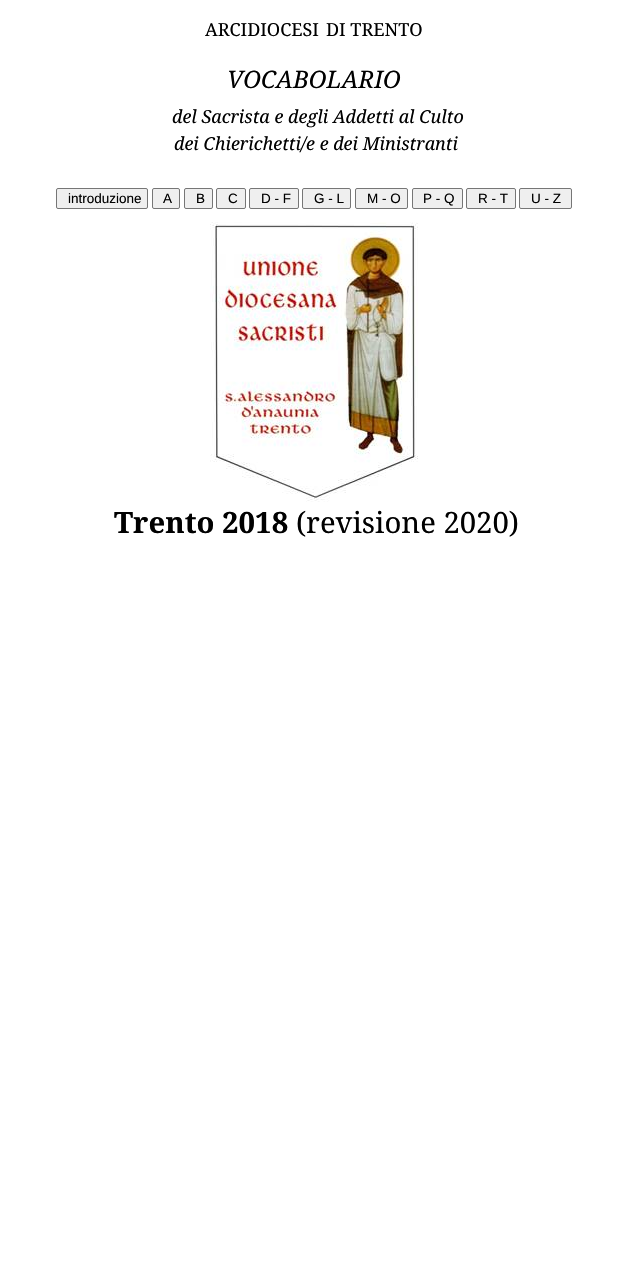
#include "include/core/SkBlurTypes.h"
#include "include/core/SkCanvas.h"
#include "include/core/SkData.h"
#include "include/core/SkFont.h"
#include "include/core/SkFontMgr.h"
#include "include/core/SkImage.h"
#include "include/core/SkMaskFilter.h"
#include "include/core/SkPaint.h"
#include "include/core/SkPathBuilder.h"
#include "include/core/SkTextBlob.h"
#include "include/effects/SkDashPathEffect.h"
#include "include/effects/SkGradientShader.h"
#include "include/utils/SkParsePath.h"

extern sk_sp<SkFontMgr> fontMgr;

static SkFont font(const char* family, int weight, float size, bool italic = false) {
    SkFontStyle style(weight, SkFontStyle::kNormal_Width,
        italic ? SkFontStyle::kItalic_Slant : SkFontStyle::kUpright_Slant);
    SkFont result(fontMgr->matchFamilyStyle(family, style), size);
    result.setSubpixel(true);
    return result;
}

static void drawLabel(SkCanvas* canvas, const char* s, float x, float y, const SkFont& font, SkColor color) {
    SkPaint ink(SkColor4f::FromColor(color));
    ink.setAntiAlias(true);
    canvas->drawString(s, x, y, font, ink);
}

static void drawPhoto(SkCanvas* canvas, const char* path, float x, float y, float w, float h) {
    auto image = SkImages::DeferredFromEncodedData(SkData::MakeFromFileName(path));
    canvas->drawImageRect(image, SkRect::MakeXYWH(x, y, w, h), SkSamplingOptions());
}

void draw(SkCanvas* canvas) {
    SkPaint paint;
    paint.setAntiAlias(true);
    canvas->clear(0xFFFFFFFF);
    SkFont font1 = font("Noto Serif", 400, 18);
    drawLabel(canvas, "ARCIDIOCESI", 205, 36, font1, 0xFF000000);
    drawLabel(canvas, "DI TRENTO", 326, 36, font1, 0xFF000000);
    SkFont font2 = font("Noto Serif", 400, 24, true);
    drawLabel(canvas, "VOCABOLARIO", 227, 88, font2, 0xFF000000);
    SkFont font3 = font("Noto Serif", 400, 18, true);
    drawLabel(canvas, "del Sacrista e degli Addetti al Culto", 172, 123, font3, 0xFF000000);
    drawLabel(canvas, "dei Chierichetti/e e dei Ministranti", 174, 150, font3, 0xFF000000);
    paint.setColor(0xFFEFEFEF);
    canvas->drawRoundRect(SkRect::MakeXYWH(56.5f, 188.5f, 91, 20), 1.5f, 1.5f, paint);
    paint.setStroke(true);
    paint.setStrokeWidth(1);
    paint.setColor(0xFF767676);
    canvas->drawRoundRect(SkRect::MakeXYWH(56.5f, 188.5f, 91, 20), 1.5f, 1.5f, paint);
    SkFont font4 = font("Liberation Sans", 400, 13.5f);
    drawLabel(canvas, "introduzione", 68, 203, font4, 0xFF000000);
    paint.setStroke(false);
    paint.setColor(0xFFEFEFEF);
    canvas->drawRoundRect(SkRect::MakeXYWH(152.5f, 188.5f, 27, 20), 1.5f, 1.5f, paint);
    paint.setStroke(true);
    paint.setColor(0xFF767676);
    canvas->drawRoundRect(SkRect::MakeXYWH(152.5f, 188.5f, 27, 20), 1.5f, 1.5f, paint);
    drawLabel(canvas, "A", 163, 203, font4, 0xFF000000);
    paint.setStroke(false);
    paint.setColor(0xFFEFEFEF);
    canvas->drawRoundRect(SkRect::MakeXYWH(184.5f, 188.5f, 28, 20), 1.5f, 1.5f, paint);
    paint.setStroke(true);
    paint.setColor(0xFF767676);
    canvas->drawRoundRect(SkRect::MakeXYWH(184.5f, 188.5f, 28, 20), 1.5f, 1.5f, paint);
    drawLabel(canvas, "B", 196, 203, font4, 0xFF000000);
    paint.setStroke(false);
    paint.setColor(0xFFEFEFEF);
    canvas->drawRoundRect(SkRect::MakeXYWH(216.5f, 188.5f, 29, 20), 1.5f, 1.5f, paint);
    paint.setStroke(true);
    paint.setColor(0xFF767676);
    canvas->drawRoundRect(SkRect::MakeXYWH(216.5f, 188.5f, 29, 20), 1.5f, 1.5f, paint);
    drawLabel(canvas, "C", 228, 203, font4, 0xFF000000);
    paint.setStroke(false);
    paint.setColor(0xFFEFEFEF);
    canvas->drawRoundRect(SkRect::MakeXYWH(249.5f, 188.5f, 49, 20), 1.5f, 1.5f, paint);
    paint.setStroke(true);
    paint.setColor(0xFF767676);
    canvas->drawRoundRect(SkRect::MakeXYWH(249.5f, 188.5f, 49, 20), 1.5f, 1.5f, paint);
    drawLabel(canvas, "D - F", 261, 203, font4, 0xFF000000);
    paint.setStroke(false);
    paint.setColor(0xFFEFEFEF);
    canvas->drawRoundRect(SkRect::MakeXYWH(302.5f, 188.5f, 48, 20), 1.5f, 1.5f, paint);
    paint.setStroke(true);
    paint.setColor(0xFF767676);
    canvas->drawRoundRect(SkRect::MakeXYWH(302.5f, 188.5f, 48, 20), 1.5f, 1.5f, paint);
    drawLabel(canvas, "G - L", 314, 203, font4, 0xFF000000);
    paint.setStroke(false);
    paint.setColor(0xFFEFEFEF);
    canvas->drawRoundRect(SkRect::MakeXYWH(355.5f, 188.5f, 52, 20), 1.5f, 1.5f, paint);
    paint.setStroke(true);
    paint.setColor(0xFF767676);
    canvas->drawRoundRect(SkRect::MakeXYWH(355.5f, 188.5f, 52, 20), 1.5f, 1.5f, paint);
    drawLabel(canvas, "M - O", 367, 203, font4, 0xFF000000);
    paint.setStroke(false);
    paint.setColor(0xFFEFEFEF);
    canvas->drawRoundRect(SkRect::MakeXYWH(412.5f, 188.5f, 50, 20), 1.5f, 1.5f, paint);
    paint.setStroke(true);
    paint.setColor(0xFF767676);
    canvas->drawRoundRect(SkRect::MakeXYWH(412.5f, 188.5f, 50, 20), 1.5f, 1.5f, paint);
    drawLabel(canvas, "P - Q", 423, 203, font4, 0xFF000000);
    paint.setStroke(false);
    paint.setColor(0xFFEFEFEF);
    canvas->drawRoundRect(SkRect::MakeXYWH(466.5f, 188.5f, 49, 20), 1.5f, 1.5f, paint);
    paint.setStroke(true);
    paint.setColor(0xFF767676);
    canvas->drawRoundRect(SkRect::MakeXYWH(466.5f, 188.5f, 49, 20), 1.5f, 1.5f, paint);
    drawLabel(canvas, "R - T", 478, 203, font4, 0xFF000000);
    paint.setStroke(false);
    paint.setColor(0xFFEFEFEF);
    canvas->drawRoundRect(SkRect::MakeXYWH(519.5f, 188.5f, 52, 20), 1.5f, 1.5f, paint);
    paint.setStroke(true);
    paint.setColor(0xFF767676);
    canvas->drawRoundRect(SkRect::MakeXYWH(519.5f, 188.5f, 52, 20), 1.5f, 1.5f, paint);
    drawLabel(canvas, "U - Z", 531, 203, font4, 0xFF000000);
    drawPhoto(canvas, "assets/img1.png", 210, 222, 208, 280);
    SkFont font5 = font("Noto Serif", 700, 29.25f);
    drawLabel(canvas, "Trento 2018", 114, 533, font5, 0xFF000000);
    SkFont font6 = font("Noto Serif", 400, 29.25f);
    drawLabel(canvas, "(revisione 2020)", 296, 533, font6, 0xFF000000);
}
